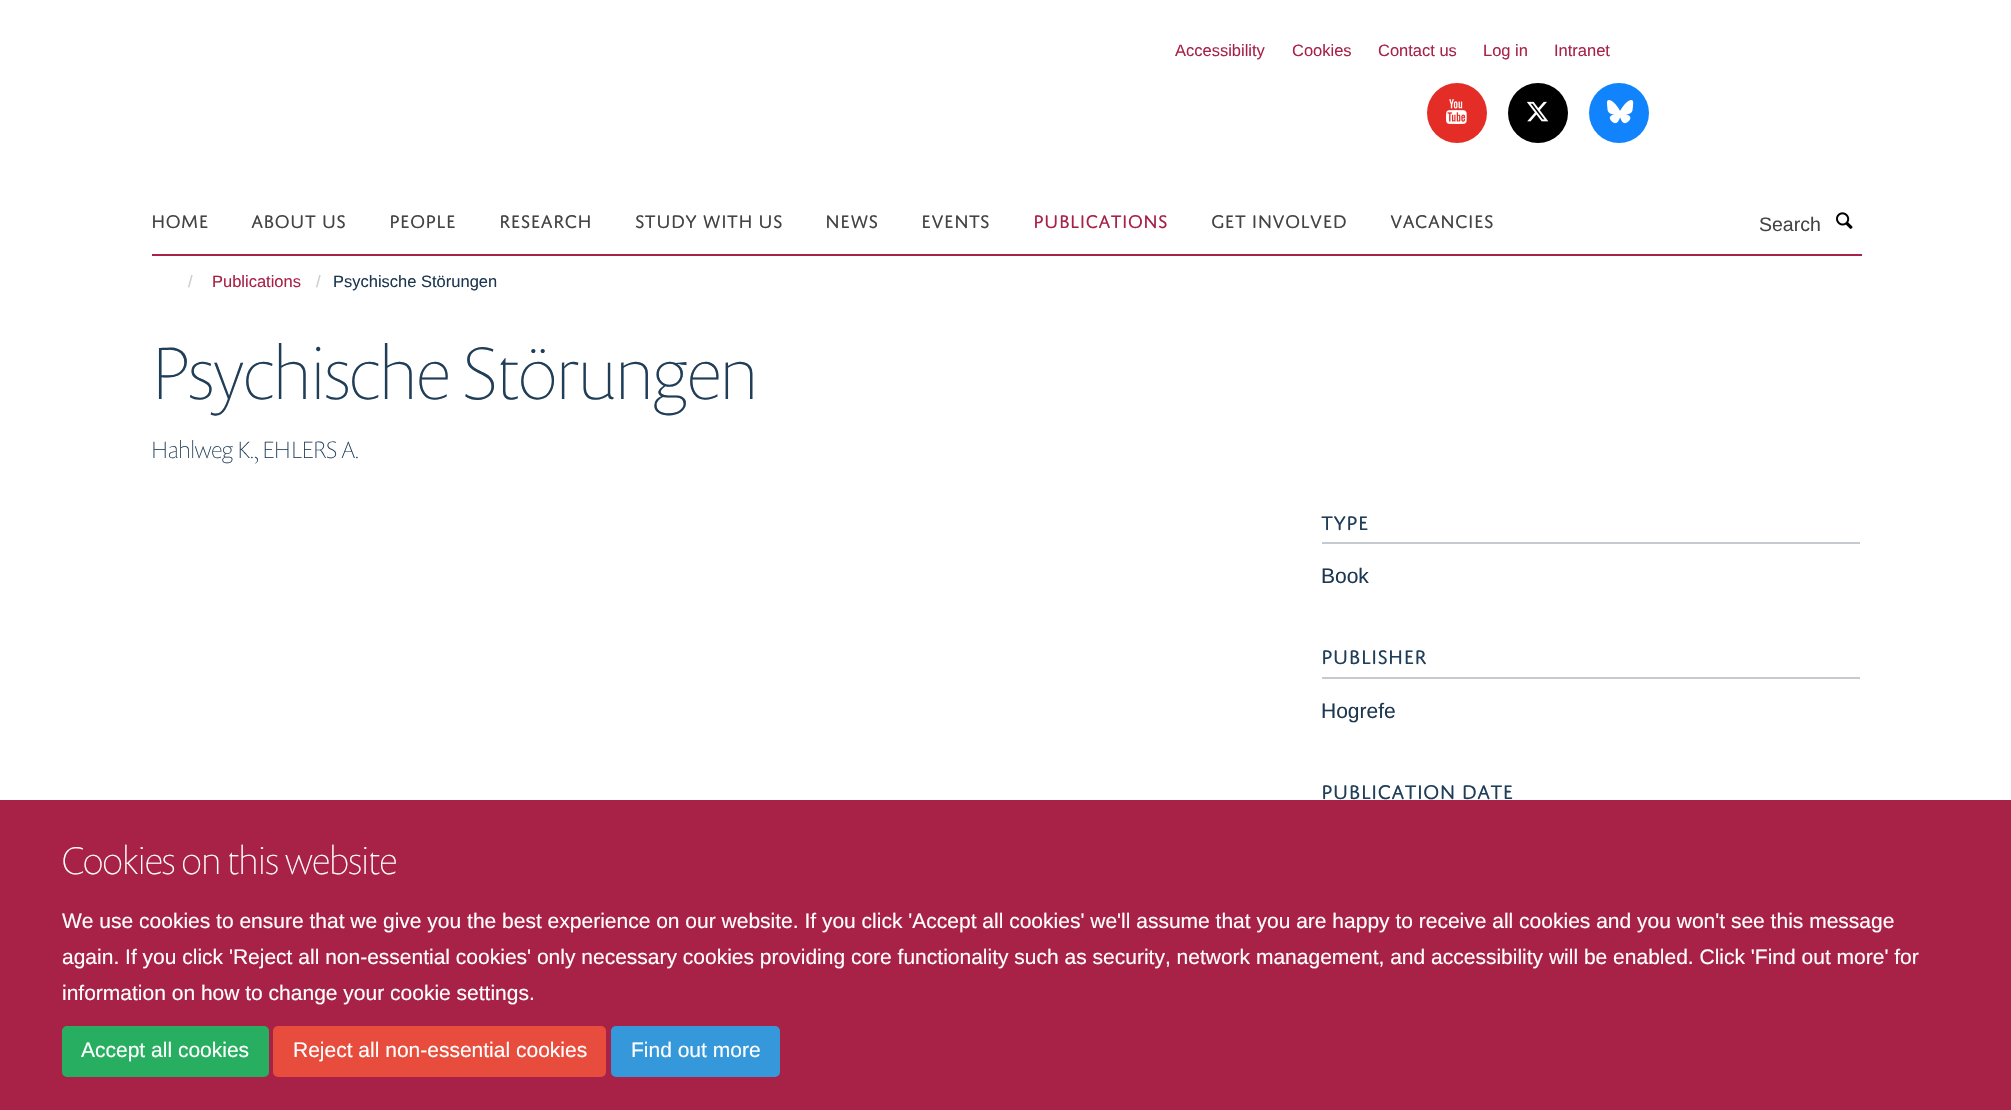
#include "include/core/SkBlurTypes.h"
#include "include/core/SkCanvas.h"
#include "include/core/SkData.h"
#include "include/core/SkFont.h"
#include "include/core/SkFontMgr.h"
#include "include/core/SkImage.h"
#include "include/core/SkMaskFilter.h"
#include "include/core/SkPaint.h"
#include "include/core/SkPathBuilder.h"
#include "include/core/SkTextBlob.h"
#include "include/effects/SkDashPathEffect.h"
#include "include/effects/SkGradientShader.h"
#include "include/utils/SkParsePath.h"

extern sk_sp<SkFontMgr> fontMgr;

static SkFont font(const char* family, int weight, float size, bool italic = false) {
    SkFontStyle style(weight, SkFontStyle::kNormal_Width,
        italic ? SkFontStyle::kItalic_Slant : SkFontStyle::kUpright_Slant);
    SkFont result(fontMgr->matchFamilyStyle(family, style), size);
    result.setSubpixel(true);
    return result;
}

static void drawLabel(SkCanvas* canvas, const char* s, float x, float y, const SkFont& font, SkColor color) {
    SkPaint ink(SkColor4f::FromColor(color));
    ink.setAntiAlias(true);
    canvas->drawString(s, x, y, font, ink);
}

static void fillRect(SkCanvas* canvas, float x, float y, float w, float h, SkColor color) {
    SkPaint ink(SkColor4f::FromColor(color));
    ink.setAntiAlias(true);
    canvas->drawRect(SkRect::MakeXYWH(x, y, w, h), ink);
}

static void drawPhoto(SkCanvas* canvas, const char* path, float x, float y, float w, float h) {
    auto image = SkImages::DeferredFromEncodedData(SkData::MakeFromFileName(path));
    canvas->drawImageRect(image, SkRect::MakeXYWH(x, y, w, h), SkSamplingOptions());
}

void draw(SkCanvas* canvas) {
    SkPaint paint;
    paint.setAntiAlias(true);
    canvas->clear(0xFFFFFFFF);
    SkFont font1 = font("Liberation Sans", 400, 16.5f);
    drawLabel(canvas, "Accessibility", 1175, 56, font1, 0xFFA82248);
    drawLabel(canvas, "Cookies", 1292, 56, font1, 0xFFA82248);
    drawLabel(canvas, "Contact us", 1378, 56, font1, 0xFFA82248);
    drawLabel(canvas, "Log in", 1483, 56, font1, 0xFFA82248);
    drawLabel(canvas, "Intranet", 1554, 56, font1, 0xFFA82248);
    paint.setColor(0xFFE52D27);
    canvas->drawCircle(1457, 113, 30, paint);
    drawPhoto(canvas, "assets/img1.png", 1446, 99, 21, 25);
    paint.setColor(0xFF000000);
    canvas->drawCircle(1538, 113, 30, paint);
    drawPhoto(canvas, "assets/img2.png", 1526, 101, 23, 21);
    paint.setColor(0xFF1183FC);
    canvas->drawCircle(1619, 113, 30, paint);
    drawPhoto(canvas, "assets/img3.png", 1607, 100, 27, 24);
    fillRect(canvas, 152, 254, 1710, 2, 0xFFA82248);
    SkFont font2 = font("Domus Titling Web", 400, 19.5f);
    drawLabel(canvas, "HOME", 151, 228, font2, 0xFF444444);
    drawLabel(canvas, "ABOUT US", 251, 228, font2, 0xFF444444);
    drawLabel(canvas, "PEOPLE", 389, 228, font2, 0xFF444444);
    drawLabel(canvas, "RESEARCH", 499, 228, font2, 0xFF444444);
    drawLabel(canvas, "STUDY WITH US", 635, 228, font2, 0xFF444444);
    drawLabel(canvas, "NEWS", 825, 228, font2, 0xFF444444);
    drawLabel(canvas, "EVENTS", 921, 228, font2, 0xFF444444);
    drawLabel(canvas, "PUBLICATIONS", 1033, 228, font2, 0xFFA82248);
    drawLabel(canvas, "GET INVOLVED", 1211, 228, font2, 0xFF444444);
    drawLabel(canvas, "VACANCIES", 1390, 228, font2, 0xFF444444);
    SkFont font3 = font("Liberation Sans", 400, 19.5f);
    drawLabel(canvas, "Search", 1759, 231, font3, 0xFF444444);
    drawPhoto(canvas, "assets/img4.png", 1836, 212, 17, 17);
    drawLabel(canvas, "/", 188, 287, font1, 0xFFCCCCCC);
    drawLabel(canvas, "Publications", 212, 287, font1, 0xFFA82248);
    drawLabel(canvas, "/", 316, 287, font1, 0xFFCCCCCC);
    drawLabel(canvas, "Psychische Störungen", 333, 287, font1, 0xFF1D3850);
    SkFont font4 = font("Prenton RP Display", 100, 75);
    drawLabel(canvas, "Psychische Störungen", 151, 399, font4, 0xFF203E58);
    SkFont font5 = font("Prenton RP Display", 100, 24);
    drawLabel(canvas, "Hahlweg K., EHLERS A.", 151, 458, font5, 0xFF203E58);
    fillRect(canvas, 1322, 542, 538, 2, 0xFFC6CACF);
    SkFont font6 = font("Domus Titling Web", 400, 21);
    drawLabel(canvas, "TYPE", 1321, 530, font6, 0xFF203E58);
    SkFont font7 = font("Liberation Sans", 400, 21);
    drawLabel(canvas, "Book", 1321, 583, font7, 0xFF1D3850);
    fillRect(canvas, 1322, 677, 538, 2, 0xFFC6CACF);
    drawLabel(canvas, "PUBLISHER", 1321, 664, font6, 0xFF203E58);
    drawLabel(canvas, "Hogrefe", 1321, 718, font7, 0xFF1D3850);
    drawLabel(canvas, "PUBLICATION DATE", 1321, 799, font6, 0xFF203E58);
    fillRect(canvas, 0, 800, 2011, 310, 0xFFA82248);
    SkFont font8 = font("Prenton RP Display", 100, 39);
    drawLabel(canvas, "Cookies on this website", 62, 874, font8, 0xFFFFFFFF);
    drawLabel(canvas, "We use cookies to ensure that we give you the best experience on our website. If you click 'Accept all cookies' we'll assume that you are happy to receive all cookies and you won't see this message", 62, 928, font7, 0xFFFFFFFF);
    drawLabel(canvas, "again. If you click 'Reject all non-essential cookies' only necessary cookies providing core functionality such as security, network management, and accessibility will be enabled. Click 'Find out more' for", 62, 964, font7, 0xFFFFFFFF);
    drawLabel(canvas, "information on how to change your cookie settings.", 62, 1000, font7, 0xFFFFFFFF);
    paint.setColor(0xFF27AE60);
    canvas->drawRoundRect(SkRect::MakeXYWH(63, 1027, 205, 49), 4, 4, paint);
    paint.setStroke(true);
    paint.setStrokeWidth(2);
    canvas->drawRoundRect(SkRect::MakeXYWH(63, 1027, 205, 49), 4, 4, paint);
    drawLabel(canvas, "Accept all cookies", 81, 1057, font7, 0xFFFFFFFF);
    paint.setStroke(false);
    paint.setColor(0xFFE74C3C);
    canvas->drawRoundRect(SkRect::MakeXYWH(274, 1027, 331, 49), 4, 4, paint);
    paint.setStroke(true);
    canvas->drawRoundRect(SkRect::MakeXYWH(274, 1027, 331, 49), 4, 4, paint);
    drawLabel(canvas, "Reject all non-essential cookies", 293, 1057, font7, 0xFFFFFFFF);
    paint.setStroke(false);
    paint.setColor(0xFF3498DB);
    canvas->drawRoundRect(SkRect::MakeXYWH(612, 1027, 167, 49), 4, 4, paint);
    paint.setStroke(true);
    canvas->drawRoundRect(SkRect::MakeXYWH(612, 1027, 167, 49), 4, 4, paint);
    drawLabel(canvas, "Find out more", 631, 1057, font7, 0xFFFFFFFF);
}
